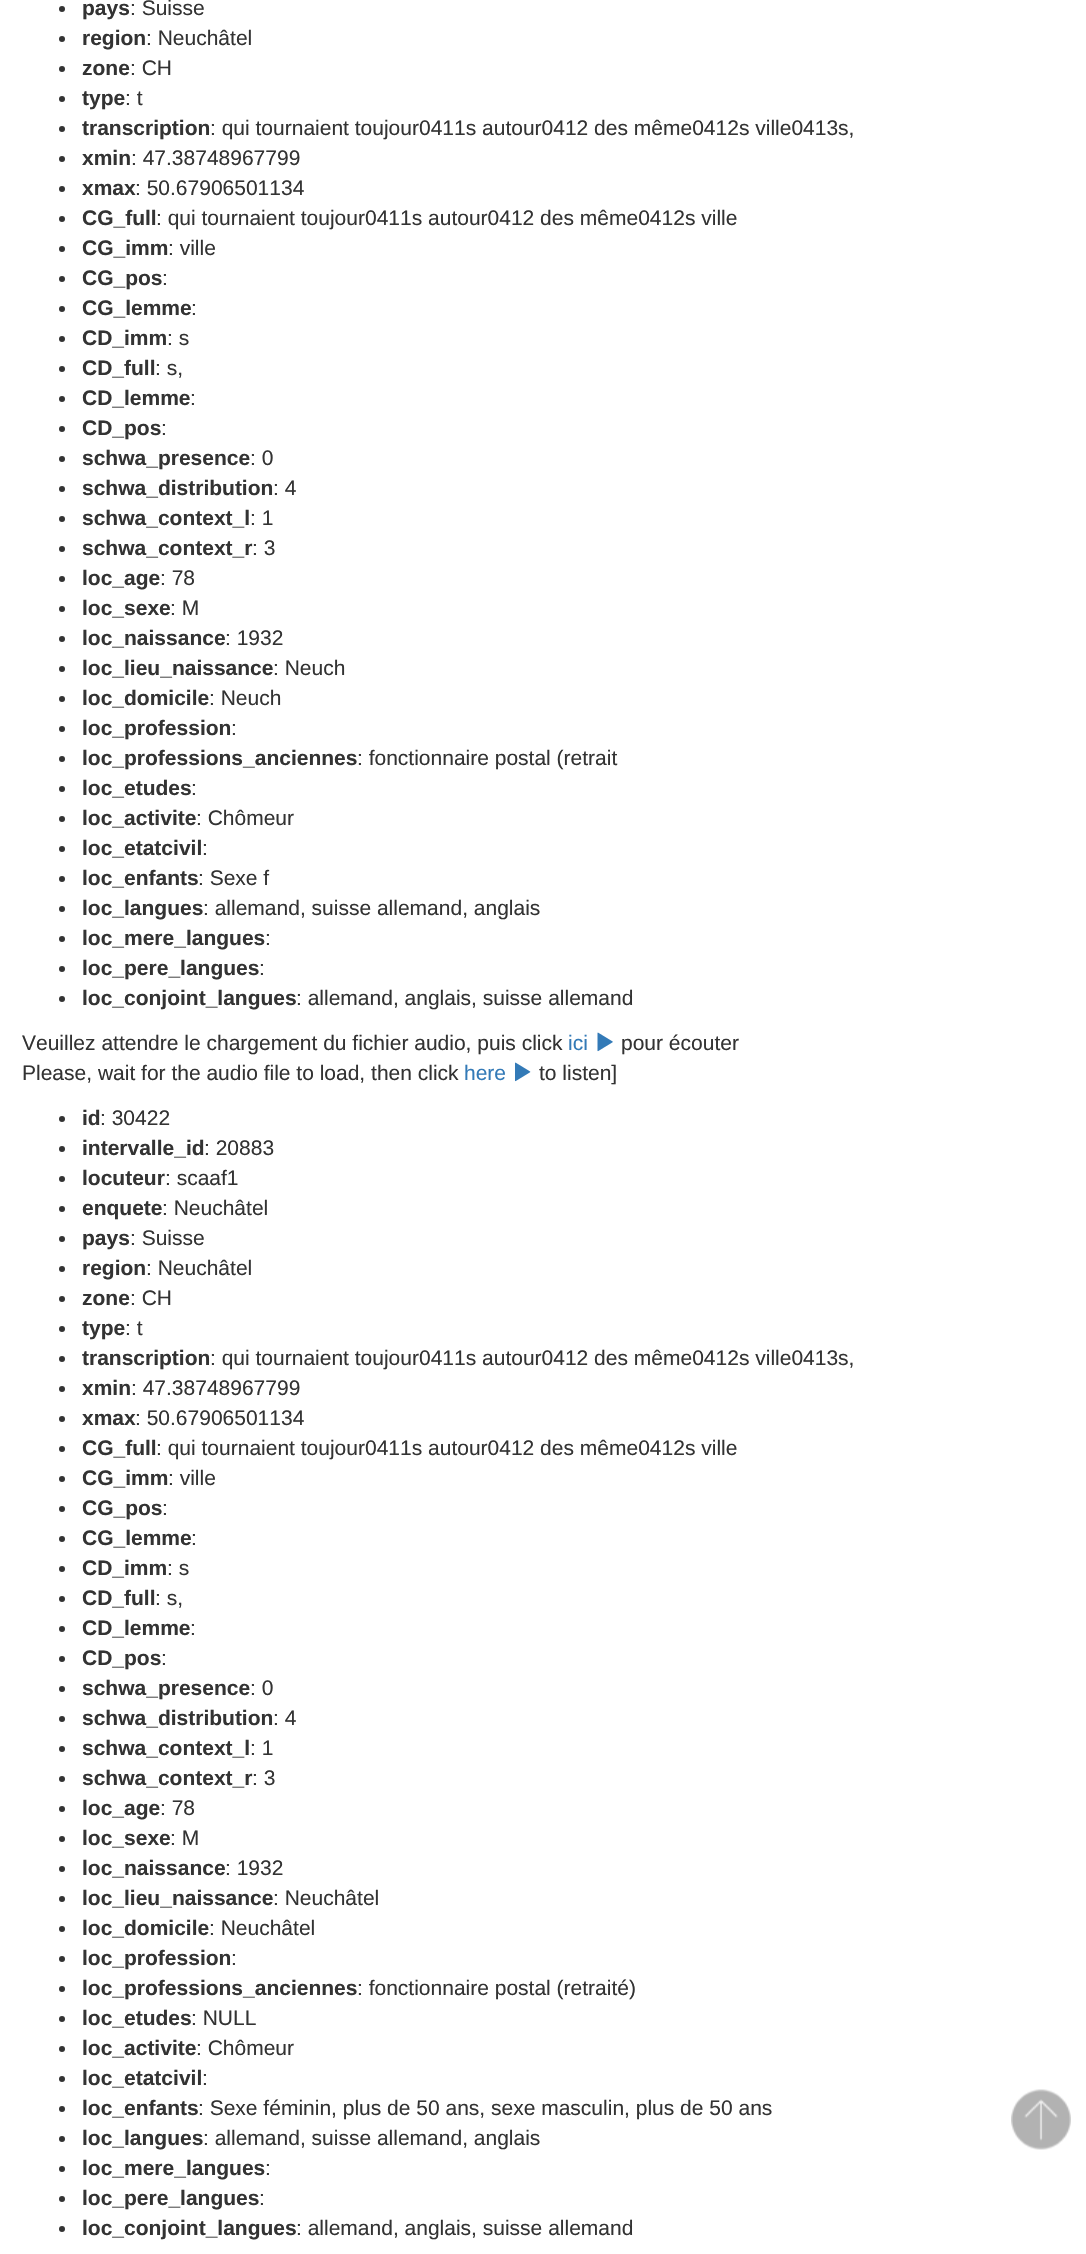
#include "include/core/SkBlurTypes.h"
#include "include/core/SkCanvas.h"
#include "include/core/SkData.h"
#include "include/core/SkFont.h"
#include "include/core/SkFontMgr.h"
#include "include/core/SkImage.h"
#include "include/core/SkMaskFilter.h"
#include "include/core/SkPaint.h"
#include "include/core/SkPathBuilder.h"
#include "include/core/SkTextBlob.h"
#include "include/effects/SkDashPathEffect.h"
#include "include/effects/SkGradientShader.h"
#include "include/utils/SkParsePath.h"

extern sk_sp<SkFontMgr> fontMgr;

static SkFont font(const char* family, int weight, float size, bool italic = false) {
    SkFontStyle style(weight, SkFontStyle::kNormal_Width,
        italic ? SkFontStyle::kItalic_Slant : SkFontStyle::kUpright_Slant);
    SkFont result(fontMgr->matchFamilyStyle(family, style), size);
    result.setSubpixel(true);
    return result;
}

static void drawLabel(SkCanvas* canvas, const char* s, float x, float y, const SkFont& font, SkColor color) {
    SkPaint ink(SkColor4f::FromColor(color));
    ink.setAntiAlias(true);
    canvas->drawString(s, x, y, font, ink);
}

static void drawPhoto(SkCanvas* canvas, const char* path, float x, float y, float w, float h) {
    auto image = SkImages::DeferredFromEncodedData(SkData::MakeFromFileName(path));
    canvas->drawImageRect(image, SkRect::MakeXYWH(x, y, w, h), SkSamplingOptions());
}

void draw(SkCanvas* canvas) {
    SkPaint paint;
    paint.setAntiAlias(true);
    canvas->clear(0xFFFFFFFF);
    paint.setColor(0xFF333333);
    canvas->drawCircle(62, 9, 3, paint);
    SkFont font1 = font("Liberation Sans", 700, 21);
    drawLabel(canvas, "pays", 82, 15, font1, 0xFF333333);
    SkFont font2 = font("Liberation Sans", 400, 21);
    drawLabel(canvas, ": Suisse", 130, 15, font2, 0xFF333333);
    canvas->drawCircle(62, 39, 3, paint);
    drawLabel(canvas, "region", 82, 45, font1, 0xFF333333);
    drawLabel(canvas, ": Neuchâtel", 146, 45, font2, 0xFF333333);
    canvas->drawCircle(62, 69, 3, paint);
    drawLabel(canvas, "zone", 82, 75, font1, 0xFF333333);
    drawLabel(canvas, ": CH", 130, 75, font2, 0xFF333333);
    canvas->drawCircle(62, 99, 3, paint);
    drawLabel(canvas, "type", 82, 105, font1, 0xFF333333);
    drawLabel(canvas, ": t", 125, 105, font2, 0xFF333333);
    canvas->drawCircle(62, 129, 3, paint);
    drawLabel(canvas, "transcription", 82, 135, font1, 0xFF333333);
    drawLabel(canvas, ": qui tournaient toujour0411s autour0412 des même0412s ville0413s,", 210, 135, font2, 0xFF333333);
    canvas->drawCircle(62, 159, 3, paint);
    drawLabel(canvas, "xmin", 82, 165, font1, 0xFF333333);
    drawLabel(canvas, ": 47.38748967799", 131, 165, font2, 0xFF333333);
    canvas->drawCircle(62, 189, 3, paint);
    drawLabel(canvas, "xmax", 82, 195, font1, 0xFF333333);
    drawLabel(canvas, ": 50.67906501134", 135, 195, font2, 0xFF333333);
    canvas->drawCircle(62, 219, 3, paint);
    drawLabel(canvas, "CG_full", 82, 225, font1, 0xFF333333);
    drawLabel(canvas, ": qui tournaient toujour0411s autour0412 des même0412s ville", 156, 225, font2, 0xFF333333);
    canvas->drawCircle(62, 249, 3, paint);
    drawLabel(canvas, "CG_imm", 82, 255, font1, 0xFF333333);
    drawLabel(canvas, ": ville", 168, 255, font2, 0xFF333333);
    canvas->drawCircle(62, 279, 3, paint);
    drawLabel(canvas, "CG_pos", 82, 285, font1, 0xFF333333);
    drawLabel(canvas, ":", 162, 285, font2, 0xFF333333);
    canvas->drawCircle(62, 309, 3, paint);
    drawLabel(canvas, "CG_lemme", 82, 315, font1, 0xFF333333);
    drawLabel(canvas, ":", 191, 315, font2, 0xFF333333);
    canvas->drawCircle(62, 339, 3, paint);
    drawLabel(canvas, "CD_imm", 82, 345, font1, 0xFF333333);
    drawLabel(canvas, ": s", 167, 345, font2, 0xFF333333);
    canvas->drawCircle(62, 369, 3, paint);
    drawLabel(canvas, "CD_full", 82, 375, font1, 0xFF333333);
    drawLabel(canvas, ": s,", 155, 375, font2, 0xFF333333);
    canvas->drawCircle(62, 399, 3, paint);
    drawLabel(canvas, "CD_lemme", 82, 405, font1, 0xFF333333);
    drawLabel(canvas, ":", 190, 405, font2, 0xFF333333);
    canvas->drawCircle(62, 429, 3, paint);
    drawLabel(canvas, "CD_pos", 82, 435, font1, 0xFF333333);
    drawLabel(canvas, ":", 161, 435, font2, 0xFF333333);
    canvas->drawCircle(62, 459, 3, paint);
    drawLabel(canvas, "schwa_presence", 82, 465, font1, 0xFF333333);
    drawLabel(canvas, ": 0", 250, 465, font2, 0xFF333333);
    canvas->drawCircle(62, 489, 3, paint);
    drawLabel(canvas, "schwa_distribution", 82, 495, font1, 0xFF333333);
    drawLabel(canvas, ": 4", 273, 495, font2, 0xFF333333);
    canvas->drawCircle(62, 519, 3, paint);
    drawLabel(canvas, "schwa_context_l", 82, 525, font1, 0xFF333333);
    drawLabel(canvas, ": 1", 250, 525, font2, 0xFF333333);
    canvas->drawCircle(62, 549, 3, paint);
    drawLabel(canvas, "schwa_context_r", 82, 555, font1, 0xFF333333);
    drawLabel(canvas, ": 3", 252, 555, font2, 0xFF333333);
    canvas->drawCircle(62, 579, 3, paint);
    drawLabel(canvas, "loc_age", 82, 585, font1, 0xFF333333);
    drawLabel(canvas, ": 78", 160, 585, font2, 0xFF333333);
    canvas->drawCircle(62, 609, 3, paint);
    drawLabel(canvas, "loc_sexe", 82, 615, font1, 0xFF333333);
    drawLabel(canvas, ": M", 170, 615, font2, 0xFF333333);
    canvas->drawCircle(62, 639, 3, paint);
    drawLabel(canvas, "loc_naissance", 82, 645, font1, 0xFF333333);
    drawLabel(canvas, ": 1932", 225, 645, font2, 0xFF333333);
    canvas->drawCircle(62, 669, 3, paint);
    drawLabel(canvas, "loc_lieu_naissance", 82, 675, font1, 0xFF333333);
    drawLabel(canvas, ": Neuch", 273, 675, font2, 0xFF333333);
    canvas->drawCircle(62, 699, 3, paint);
    drawLabel(canvas, "loc_domicile", 82, 705, font1, 0xFF333333);
    drawLabel(canvas, ": Neuch", 209, 705, font2, 0xFF333333);
    canvas->drawCircle(62, 729, 3, paint);
    drawLabel(canvas, "loc_profession", 82, 735, font1, 0xFF333333);
    drawLabel(canvas, ":", 231, 735, font2, 0xFF333333);
    canvas->drawCircle(62, 759, 3, paint);
    drawLabel(canvas, "loc_professions_anciennes", 82, 765, font1, 0xFF333333);
    drawLabel(canvas, ": fonctionnaire postal (retrait", 357, 765, font2, 0xFF333333);
    canvas->drawCircle(62, 789, 3, paint);
    drawLabel(canvas, "loc_etudes", 82, 795, font1, 0xFF333333);
    drawLabel(canvas, ":", 191, 795, font2, 0xFF333333);
    canvas->drawCircle(62, 819, 3, paint);
    drawLabel(canvas, "loc_activite", 82, 825, font1, 0xFF333333);
    drawLabel(canvas, ": Chômeur", 196, 825, font2, 0xFF333333);
    canvas->drawCircle(62, 849, 3, paint);
    drawLabel(canvas, "loc_etatcivil", 82, 855, font1, 0xFF333333);
    drawLabel(canvas, ":", 202, 855, font2, 0xFF333333);
    canvas->drawCircle(62, 879, 3, paint);
    drawLabel(canvas, "loc_enfants", 82, 885, font1, 0xFF333333);
    drawLabel(canvas, ": Sexe f", 198, 885, font2, 0xFF333333);
    canvas->drawCircle(62, 909, 3, paint);
    drawLabel(canvas, "loc_langues", 82, 915, font1, 0xFF333333);
    drawLabel(canvas, ": allemand, suisse allemand, anglais", 203, 915, font2, 0xFF333333);
    canvas->drawCircle(62, 939, 3, paint);
    drawLabel(canvas, "loc_mere_langues", 82, 945, font1, 0xFF333333);
    drawLabel(canvas, ":", 265, 945, font2, 0xFF333333);
    canvas->drawCircle(62, 969, 3, paint);
    drawLabel(canvas, "loc_pere_langues", 82, 975, font1, 0xFF333333);
    drawLabel(canvas, ":", 259, 975, font2, 0xFF333333);
    canvas->drawCircle(62, 999, 3, paint);
    drawLabel(canvas, "loc_conjoint_langues", 82, 1005, font1, 0xFF333333);
    drawLabel(canvas, ": allemand, anglais, suisse allemand", 296, 1005, font2, 0xFF333333);
    drawLabel(canvas, "Veuillez attendre le chargement du fichier audio, puis click", 22, 1050, font2, 0xFF333333);
    drawLabel(canvas, "ici", 568, 1050, font2, 0xFF337AB7);
    drawPhoto(canvas, "assets/img1.png", 597, 1032, 16, 20);
    drawLabel(canvas, "pour écouter", 621, 1050, font2, 0xFF333333);
    drawLabel(canvas, "Please, wait for the audio file to load, then click", 22, 1080, font2, 0xFF333333);
    drawLabel(canvas, "here", 464, 1080, font2, 0xFF337AB7);
    drawPhoto(canvas, "assets/img2.png", 515, 1062, 16, 20);
    drawLabel(canvas, "to listen]", 539, 1080, font2, 0xFF333333);
    canvas->drawCircle(62, 1119, 3, paint);
    drawLabel(canvas, "id", 82, 1125, font1, 0xFF333333);
    drawLabel(canvas, ": 30422", 100, 1125, font2, 0xFF333333);
    canvas->drawCircle(62, 1149, 3, paint);
    drawLabel(canvas, "intervalle_id", 82, 1155, font1, 0xFF333333);
    drawLabel(canvas, ": 20883", 204, 1155, font2, 0xFF333333);
    canvas->drawCircle(62, 1179, 3, paint);
    drawLabel(canvas, "locuteur", 82, 1185, font1, 0xFF333333);
    drawLabel(canvas, ": scaaf1", 165, 1185, font2, 0xFF333333);
    canvas->drawCircle(62, 1209, 3, paint);
    drawLabel(canvas, "enquete", 82, 1215, font1, 0xFF333333);
    drawLabel(canvas, ": Neuchâtel", 162, 1215, font2, 0xFF333333);
    canvas->drawCircle(62, 1239, 3, paint);
    drawLabel(canvas, "pays", 82, 1245, font1, 0xFF333333);
    drawLabel(canvas, ": Suisse", 130, 1245, font2, 0xFF333333);
    canvas->drawCircle(62, 1269, 3, paint);
    drawLabel(canvas, "region", 82, 1275, font1, 0xFF333333);
    drawLabel(canvas, ": Neuchâtel", 146, 1275, font2, 0xFF333333);
    canvas->drawCircle(62, 1299, 3, paint);
    drawLabel(canvas, "zone", 82, 1305, font1, 0xFF333333);
    drawLabel(canvas, ": CH", 130, 1305, font2, 0xFF333333);
    canvas->drawCircle(62, 1329, 3, paint);
    drawLabel(canvas, "type", 82, 1335, font1, 0xFF333333);
    drawLabel(canvas, ": t", 125, 1335, font2, 0xFF333333);
    canvas->drawCircle(62, 1359, 3, paint);
    drawLabel(canvas, "transcription", 82, 1365, font1, 0xFF333333);
    drawLabel(canvas, ": qui tournaient toujour0411s autour0412 des même0412s ville0413s,", 210, 1365, font2, 0xFF333333);
    canvas->drawCircle(62, 1389, 3, paint);
    drawLabel(canvas, "xmin", 82, 1395, font1, 0xFF333333);
    drawLabel(canvas, ": 47.38748967799", 131, 1395, font2, 0xFF333333);
    canvas->drawCircle(62, 1419, 3, paint);
    drawLabel(canvas, "xmax", 82, 1425, font1, 0xFF333333);
    drawLabel(canvas, ": 50.67906501134", 135, 1425, font2, 0xFF333333);
    canvas->drawCircle(62, 1449, 3, paint);
    drawLabel(canvas, "CG_full", 82, 1455, font1, 0xFF333333);
    drawLabel(canvas, ": qui tournaient toujour0411s autour0412 des même0412s ville", 156, 1455, font2, 0xFF333333);
    canvas->drawCircle(62, 1479, 3, paint);
    drawLabel(canvas, "CG_imm", 82, 1485, font1, 0xFF333333);
    drawLabel(canvas, ": ville", 168, 1485, font2, 0xFF333333);
    canvas->drawCircle(62, 1509, 3, paint);
    drawLabel(canvas, "CG_pos", 82, 1515, font1, 0xFF333333);
    drawLabel(canvas, ":", 162, 1515, font2, 0xFF333333);
    canvas->drawCircle(62, 1539, 3, paint);
    drawLabel(canvas, "CG_lemme", 82, 1545, font1, 0xFF333333);
    drawLabel(canvas, ":", 191, 1545, font2, 0xFF333333);
    canvas->drawCircle(62, 1569, 3, paint);
    drawLabel(canvas, "CD_imm", 82, 1575, font1, 0xFF333333);
    drawLabel(canvas, ": s", 167, 1575, font2, 0xFF333333);
    canvas->drawCircle(62, 1599, 3, paint);
    drawLabel(canvas, "CD_full", 82, 1605, font1, 0xFF333333);
    drawLabel(canvas, ": s,", 155, 1605, font2, 0xFF333333);
    canvas->drawCircle(62, 1629, 3, paint);
    drawLabel(canvas, "CD_lemme", 82, 1635, font1, 0xFF333333);
    drawLabel(canvas, ":", 190, 1635, font2, 0xFF333333);
    canvas->drawCircle(62, 1659, 3, paint);
    drawLabel(canvas, "CD_pos", 82, 1665, font1, 0xFF333333);
    drawLabel(canvas, ":", 161, 1665, font2, 0xFF333333);
    canvas->drawCircle(62, 1689, 3, paint);
    drawLabel(canvas, "schwa_presence", 82, 1695, font1, 0xFF333333);
    drawLabel(canvas, ": 0", 250, 1695, font2, 0xFF333333);
    canvas->drawCircle(62, 1719, 3, paint);
    drawLabel(canvas, "schwa_distribution", 82, 1725, font1, 0xFF333333);
    drawLabel(canvas, ": 4", 273, 1725, font2, 0xFF333333);
    canvas->drawCircle(62, 1749, 3, paint);
    drawLabel(canvas, "schwa_context_l", 82, 1755, font1, 0xFF333333);
    drawLabel(canvas, ": 1", 250, 1755, font2, 0xFF333333);
    canvas->drawCircle(62, 1779, 3, paint);
    drawLabel(canvas, "schwa_context_r", 82, 1785, font1, 0xFF333333);
    drawLabel(canvas, ": 3", 252, 1785, font2, 0xFF333333);
    canvas->drawCircle(62, 1809, 3, paint);
    drawLabel(canvas, "loc_age", 82, 1815, font1, 0xFF333333);
    drawLabel(canvas, ": 78", 160, 1815, font2, 0xFF333333);
    canvas->drawCircle(62, 1839, 3, paint);
    drawLabel(canvas, "loc_sexe", 82, 1845, font1, 0xFF333333);
    drawLabel(canvas, ": M", 170, 1845, font2, 0xFF333333);
    canvas->drawCircle(62, 1869, 3, paint);
    drawLabel(canvas, "loc_naissance", 82, 1875, font1, 0xFF333333);
    drawLabel(canvas, ": 1932", 225, 1875, font2, 0xFF333333);
    canvas->drawCircle(62, 1899, 3, paint);
    drawLabel(canvas, "loc_lieu_naissance", 82, 1905, font1, 0xFF333333);
    drawLabel(canvas, ": Neuchâtel", 273, 1905, font2, 0xFF333333);
    canvas->drawCircle(62, 1929, 3, paint);
    drawLabel(canvas, "loc_domicile", 82, 1935, font1, 0xFF333333);
    drawLabel(canvas, ": Neuchâtel", 209, 1935, font2, 0xFF333333);
    canvas->drawCircle(62, 1959, 3, paint);
    drawLabel(canvas, "loc_profession", 82, 1965, font1, 0xFF333333);
    drawLabel(canvas, ":", 231, 1965, font2, 0xFF333333);
    canvas->drawCircle(62, 1989, 3, paint);
    drawLabel(canvas, "loc_professions_anciennes", 82, 1995, font1, 0xFF333333);
    drawLabel(canvas, ": fonctionnaire postal (retraité)", 357, 1995, font2, 0xFF333333);
    canvas->drawCircle(62, 2019, 3, paint);
    drawLabel(canvas, "loc_etudes", 82, 2025, font1, 0xFF333333);
    drawLabel(canvas, ": NULL", 191, 2025, font2, 0xFF333333);
    canvas->drawCircle(62, 2049, 3, paint);
    drawLabel(canvas, "loc_activite", 82, 2055, font1, 0xFF333333);
    drawLabel(canvas, ": Chômeur", 196, 2055, font2, 0xFF333333);
    canvas->drawCircle(62, 2079, 3, paint);
    drawLabel(canvas, "loc_etatcivil", 82, 2085, font1, 0xFF333333);
    drawLabel(canvas, ":", 202, 2085, font2, 0xFF333333);
    canvas->drawCircle(62, 2109, 3, paint);
    drawLabel(canvas, "loc_enfants", 82, 2115, font1, 0xFF333333);
    drawLabel(canvas, ": Sexe féminin, plus de 50 ans, sexe masculin, plus de 50 ans", 198, 2115, font2, 0xFF333333);
    canvas->drawCircle(62, 2139, 3, paint);
    drawLabel(canvas, "loc_langues", 82, 2145, font1, 0xFF333333);
    drawLabel(canvas, ": allemand, suisse allemand, anglais", 203, 2145, font2, 0xFF333333);
    canvas->drawCircle(62, 2169, 3, paint);
    drawLabel(canvas, "loc_mere_langues", 82, 2175, font1, 0xFF333333);
    drawLabel(canvas, ":", 265, 2175, font2, 0xFF333333);
    canvas->drawCircle(62, 2199, 3, paint);
    drawLabel(canvas, "loc_pere_langues", 82, 2205, font1, 0xFF333333);
    drawLabel(canvas, ":", 259, 2205, font2, 0xFF333333);
    canvas->drawCircle(62, 2229, 3, paint);
    drawLabel(canvas, "loc_conjoint_langues", 82, 2235, font1, 0xFF333333);
    drawLabel(canvas, ": allemand, anglais, suisse allemand", 296, 2235, font2, 0xFF333333);
    drawPhoto(canvas, "assets/img3.png", 1011, 2089, 60, 61);
}
